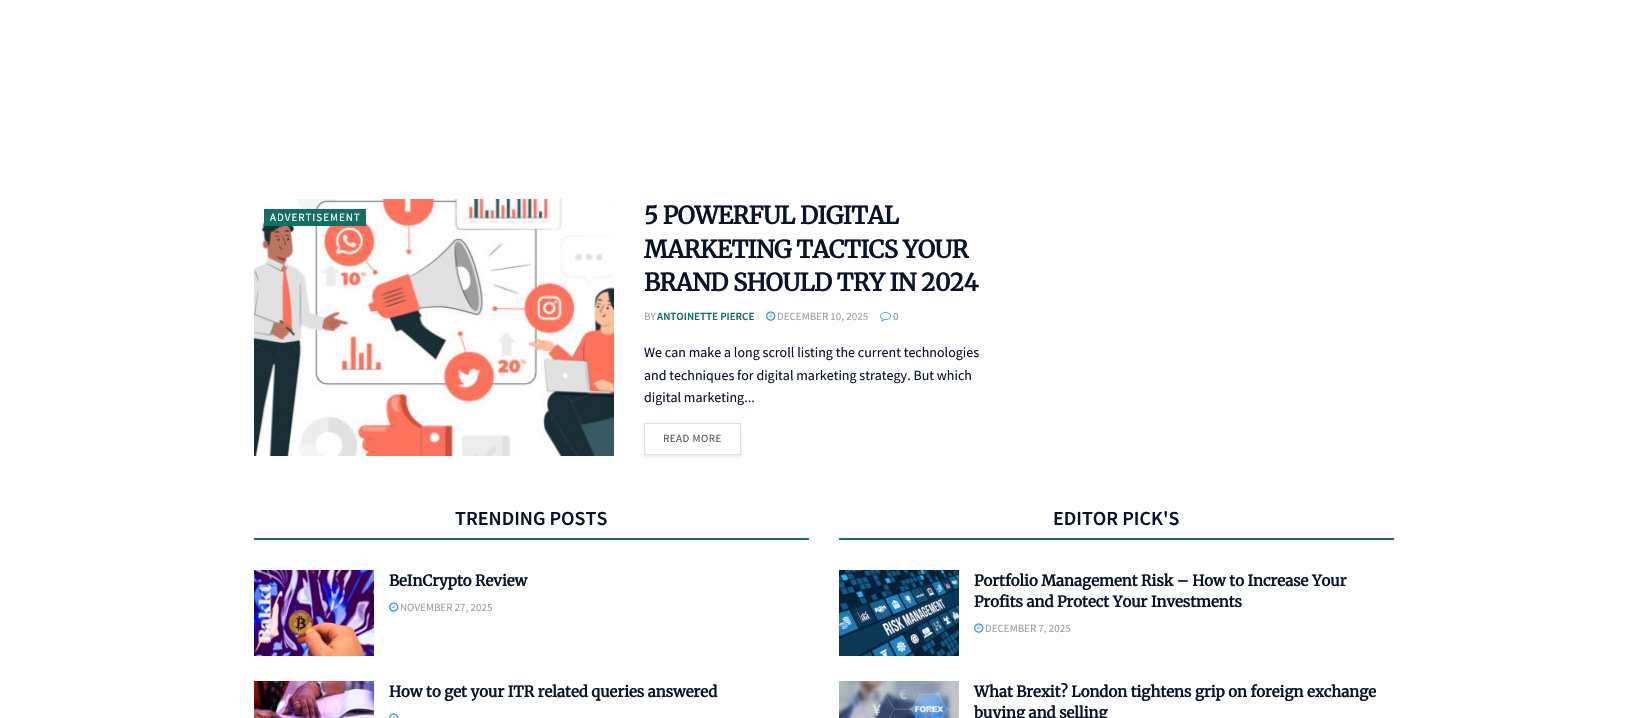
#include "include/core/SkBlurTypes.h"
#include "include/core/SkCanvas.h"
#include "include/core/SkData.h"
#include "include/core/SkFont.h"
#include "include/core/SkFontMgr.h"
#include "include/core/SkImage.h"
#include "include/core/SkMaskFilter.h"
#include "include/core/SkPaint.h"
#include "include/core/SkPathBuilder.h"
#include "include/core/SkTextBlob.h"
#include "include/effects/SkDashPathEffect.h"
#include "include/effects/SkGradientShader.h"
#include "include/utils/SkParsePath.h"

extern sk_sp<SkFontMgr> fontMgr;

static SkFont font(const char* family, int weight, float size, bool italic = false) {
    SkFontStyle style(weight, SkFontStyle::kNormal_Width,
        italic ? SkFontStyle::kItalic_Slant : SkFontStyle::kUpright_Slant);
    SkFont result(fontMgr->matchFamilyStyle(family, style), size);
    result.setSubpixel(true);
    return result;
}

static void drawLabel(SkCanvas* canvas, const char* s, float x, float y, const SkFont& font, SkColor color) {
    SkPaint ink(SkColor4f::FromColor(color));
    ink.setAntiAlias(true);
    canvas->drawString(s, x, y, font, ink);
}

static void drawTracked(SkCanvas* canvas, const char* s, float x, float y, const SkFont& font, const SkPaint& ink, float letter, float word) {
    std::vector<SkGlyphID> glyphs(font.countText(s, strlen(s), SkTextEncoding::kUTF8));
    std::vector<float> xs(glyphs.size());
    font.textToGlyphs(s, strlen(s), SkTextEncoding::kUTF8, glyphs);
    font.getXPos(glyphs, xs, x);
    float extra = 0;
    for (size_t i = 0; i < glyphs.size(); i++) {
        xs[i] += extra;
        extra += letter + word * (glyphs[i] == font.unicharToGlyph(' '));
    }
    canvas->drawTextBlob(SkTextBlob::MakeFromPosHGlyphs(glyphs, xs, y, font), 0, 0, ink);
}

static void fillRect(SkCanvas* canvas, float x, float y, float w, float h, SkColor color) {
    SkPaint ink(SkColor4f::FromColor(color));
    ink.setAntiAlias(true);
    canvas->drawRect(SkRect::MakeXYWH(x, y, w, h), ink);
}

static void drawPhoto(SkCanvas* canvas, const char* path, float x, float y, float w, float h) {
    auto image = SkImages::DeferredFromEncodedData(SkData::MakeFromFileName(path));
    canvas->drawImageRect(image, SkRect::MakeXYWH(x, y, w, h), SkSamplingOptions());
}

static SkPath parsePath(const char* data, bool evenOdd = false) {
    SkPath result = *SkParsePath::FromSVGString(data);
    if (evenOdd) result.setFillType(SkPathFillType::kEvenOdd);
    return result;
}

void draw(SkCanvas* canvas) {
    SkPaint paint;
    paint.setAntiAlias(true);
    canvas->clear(0xFFFFFFFF);
    drawPhoto(canvas, "assets/img1.png", 254, 199, 360, 257);
    fillRect(canvas, 264, 209, 102, 17, 0xFF136F63);
    SkFont font1 = font("Source Sans Pro", 400, 11);
    paint.setColor(0xFFFFFFFF);
    drawTracked(canvas, "ADVERTISEMENT", 270, 221, font1, paint, 1, 0);
    SkFont font2 = font("Merriweather", 700, 24);
    paint.setColor(0xFF0B132B);
    drawTracked(canvas, "5 POWERFUL DIGITAL", 644, 224, font2, paint, -0.5f, 0);
    drawTracked(canvas, "MARKETING TACTICS YOUR", 644, 258, font2, paint, -0.5f, 0);
    drawTracked(canvas, "BRAND SHOULD TRY IN 2024", 644, 291, font2, paint, -0.5f, 0);
    drawLabel(canvas, "BY", 644, 320, font1, 0xFFA0A0A0);
    SkFont font3 = font("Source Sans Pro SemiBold", 600, 11);
    drawLabel(canvas, "ANTOINETTE PIERCE", 657, 320, font3, 0xFF136F63);
    drawPhoto(canvas, "assets/img2.png", 766, 311, 10, 10);
    drawLabel(canvas, "DECEMBER 10, 2025", 777, 320, font1, 0xFFA0A0A0);
    drawPhoto(canvas, "assets/img3.png", 880, 312, 11, 10);
    drawLabel(canvas, "0", 893, 320, font3, 0xFFA0A0A0);
    SkFont font4 = font("Source Sans Pro", 400, 14);
    drawLabel(canvas, "We can make a long scroll listing the current technologies", 644, 357, font4, 0xFF0B132B);
    drawLabel(canvas, "and techniques for digital marketing strategy. But which", 644, 380, font4, 0xFF0B132B);
    drawLabel(canvas, "digital marketing...", 644, 402, font4, 0xFF0B132B);
    canvas->save();
    canvas->clipPath(parsePath("M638 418H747V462H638ZM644 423H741V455H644Z", true), true);
    paint.setColor(0x1A000000);
    paint.setMaskFilter(SkMaskFilter::MakeBlur(kNormal_SkBlurStyle, 1.5f));
    canvas->drawRect(SkRect::MakeXYWH(644, 424, 97, 32), paint);
    paint.setMaskFilter(nullptr);
    canvas->restore();
    paint.setStroke(true);
    paint.setStrokeWidth(1);
    paint.setColor(0xFFE0E0E0);
    canvas->drawRect(SkRect::MakeXYWH(644.5f, 423.5f, 96, 31), paint);
    paint.setStroke(false);
    paint.setColor(0xFF53585C);
    drawTracked(canvas, "READ MORE", 663, 442, font1, paint, 0.5f, 0);
    fillRect(canvas, 254, 538, 555, 2, 0xFF136F63);
    SkFont font5 = font("Source Sans Pro SemiBold", 600, 20);
    drawLabel(canvas, "TRENDING POSTS", 455, 525, font5, 0xFF0B132B);
    drawPhoto(canvas, "assets/img4.png", 254, 570, 120, 86);
    SkFont font6 = font("Merriweather", 700, 15);
    drawLabel(canvas, "BeInCrypto Review", 389, 586, font6, 0xFF0B132B);
    drawPhoto(canvas, "assets/img2.png", 389, 602, 10, 10);
    drawLabel(canvas, "NOVEMBER 27, 2025", 400, 611, font1, 0xFFA0A0A0);
    drawPhoto(canvas, "assets/img5.png", 254, 681, 120, 37);
    drawLabel(canvas, "How to get your ITR related queries answered", 389, 697, font6, 0xFF0B132B);
    drawPhoto(canvas, "assets/img6.png", 389, 713, 10, 5);
    fillRect(canvas, 839, 538, 555, 2, 0xFF136F63);
    drawLabel(canvas, "EDITOR PICK'S", 1053, 525, font5, 0xFF0B132B);
    drawPhoto(canvas, "assets/img7.png", 839, 570, 120, 86);
    drawLabel(canvas, "Portfolio Management Risk – How to Increase Your", 974, 586, font6, 0xFF0B132B);
    drawLabel(canvas, "Profits and Protect Your Investments", 974, 607, font6, 0xFF0B132B);
    drawPhoto(canvas, "assets/img2.png", 974, 623, 10, 10);
    drawLabel(canvas, "DECEMBER 7, 2025", 985, 632, font1, 0xFFA0A0A0);
    drawPhoto(canvas, "assets/img8.png", 839, 681, 120, 37);
    drawLabel(canvas, "What Brexit? London tightens grip on foreign exchange", 974, 697, font6, 0xFF0B132B);
    drawLabel(canvas, "buying and selling", 974, 718, font6, 0xFF0B132B);
}
